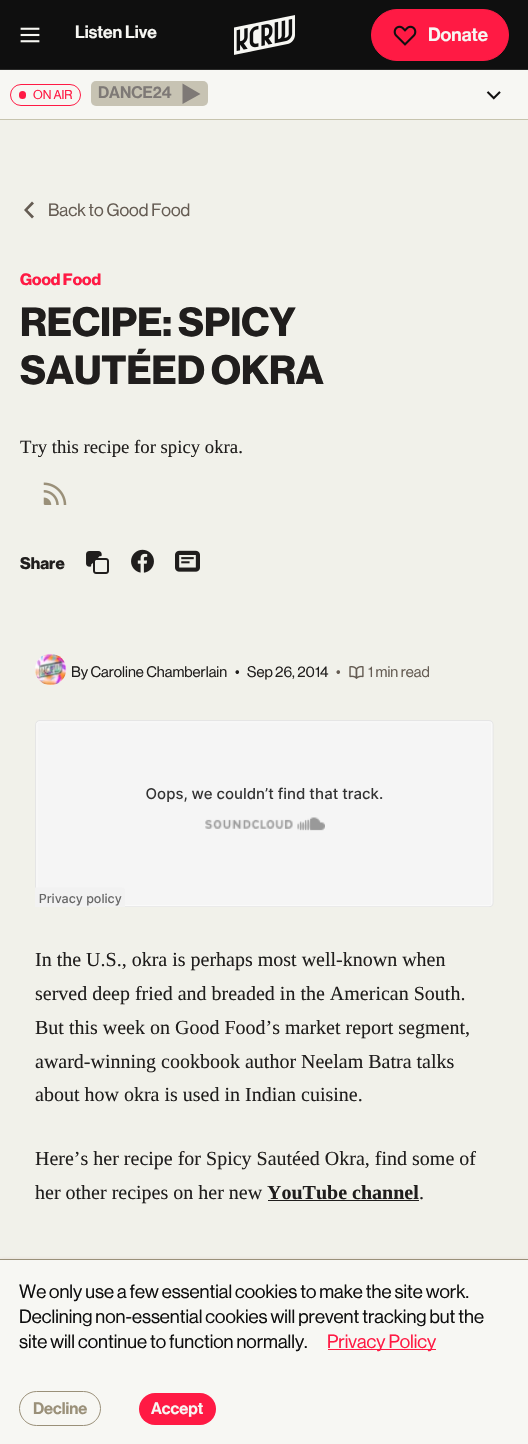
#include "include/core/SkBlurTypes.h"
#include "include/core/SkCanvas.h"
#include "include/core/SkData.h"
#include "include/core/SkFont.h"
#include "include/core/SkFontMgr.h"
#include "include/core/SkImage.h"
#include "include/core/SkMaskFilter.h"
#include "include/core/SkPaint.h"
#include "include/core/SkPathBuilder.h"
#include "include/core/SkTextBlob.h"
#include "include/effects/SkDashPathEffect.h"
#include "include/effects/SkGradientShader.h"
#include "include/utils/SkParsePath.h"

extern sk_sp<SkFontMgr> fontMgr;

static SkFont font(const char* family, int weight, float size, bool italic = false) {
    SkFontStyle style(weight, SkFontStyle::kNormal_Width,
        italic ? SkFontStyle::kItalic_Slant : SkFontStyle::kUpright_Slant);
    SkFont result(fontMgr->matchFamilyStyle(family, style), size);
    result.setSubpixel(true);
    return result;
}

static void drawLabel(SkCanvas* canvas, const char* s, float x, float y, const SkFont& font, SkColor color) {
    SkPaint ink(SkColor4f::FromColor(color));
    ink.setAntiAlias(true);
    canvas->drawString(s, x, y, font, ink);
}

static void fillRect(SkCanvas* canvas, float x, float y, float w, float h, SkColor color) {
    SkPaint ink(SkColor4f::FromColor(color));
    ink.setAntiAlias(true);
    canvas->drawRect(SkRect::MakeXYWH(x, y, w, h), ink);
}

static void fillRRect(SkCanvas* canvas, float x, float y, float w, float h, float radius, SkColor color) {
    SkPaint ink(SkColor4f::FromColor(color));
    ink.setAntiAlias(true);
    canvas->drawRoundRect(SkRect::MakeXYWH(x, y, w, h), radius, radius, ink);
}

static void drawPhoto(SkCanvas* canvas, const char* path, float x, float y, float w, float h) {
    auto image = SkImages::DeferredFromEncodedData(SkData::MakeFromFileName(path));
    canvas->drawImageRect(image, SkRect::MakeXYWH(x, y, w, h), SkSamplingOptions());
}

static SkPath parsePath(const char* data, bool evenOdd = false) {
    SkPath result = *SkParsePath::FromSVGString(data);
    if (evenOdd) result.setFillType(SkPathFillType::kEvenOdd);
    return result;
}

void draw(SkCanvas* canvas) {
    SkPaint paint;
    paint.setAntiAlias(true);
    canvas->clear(0xFFF1F1EA);
    fillRect(canvas, 0, 0, 528, 69, 0xFF0F0F0F);
    fillRect(canvas, 0, 69, 528, 1, 0xFF2B2B2A);
    drawPhoto(canvas, "assets/img1.png", 20, 27, 20, 16);
    SkFont font1 = font("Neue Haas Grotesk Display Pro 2", 500, 17.5f);
    drawLabel(canvas, "Listen Live", 75, 38, font1, 0xFFF7F7F3);
    drawPhoto(canvas, "assets/img2.png", 234, 15, 61, 40);
    paint.setColor(0xFFFF1A44);
    canvas->drawRoundRect(SkRect::MakeXYWH(371.5f, 9.5f, 137, 51), 25.5f, 25.5f, paint);
    paint.setStroke(true);
    paint.setStrokeWidth(1);
    canvas->drawRoundRect(SkRect::MakeXYWH(371.5f, 9.5f, 137, 51), 25.5f, 25.5f, paint);
    drawPhoto(canvas, "assets/img3.png", 393, 25, 24, 21);
    SkFont font2 = font("Neue Haas Grotesk Display Pro 2", 500, 18.75f);
    drawLabel(canvas, "Donate", 428, 41, font2, 0xFFF7F7F3);
    fillRect(canvas, 0, 70, 528, 49, 0xFFF7F7F3);
    fillRect(canvas, 0, 119, 528, 1, 0xFFC7C4AE);
    canvas->drawRoundRect(SkRect::MakeXYWH(10.5f, 84.5f, 70, 21), 10.5f, 10.5f, paint);
    fillRRect(canvas, 19, 91, 7, 8, 3.5f, 0xFFFF1A44);
    SkFont font3 = font("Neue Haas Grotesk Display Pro", 500, 12.5f);
    drawLabel(canvas, "ON AIR", 33, 99, font3, 0xFFFF1A44);
    fillRRect(canvas, 91, 81, 117, 25, 5, 0xFFEFEFEF);
    fillRRect(canvas, 91, 81, 117, 25, 5, 0xB3B6B19A);
    SkFont font4 = font("Neue Haas Grotesk Display Pro 2", 500, 16.5f);
    drawLabel(canvas, "DANCE24", 98, 98, font4, 0xFF7E7976);
    paint.setStroke(false);
    paint.setColor(0xFF7E7976);
    canvas->drawPath(parsePath("M182.5 83.5V104L200.5 94Z"), paint);
    drawPhoto(canvas, "assets/img4.png", 486, 91, 15, 9);
    paint.setColor(0xFF655C53);
    canvas->drawPath(parsePath("M32 201.5L34 203.5L27.5 210L34 216.5L32 218.5L24 210Z", true), paint);
    SkFont font5 = font("Neue Haas Grotesk Display Pro", 500, 17.5f);
    drawLabel(canvas, "Back to Good Food", 48, 216, font5, 0xFF655C53);
    SkFont font6 = font("Neue Haas Grotesk Display Pro", 700, 16.25f);
    drawLabel(canvas, "Good Food", 20, 285, font6, 0xFFFF1A44);
    SkFont font7 = font("Neue Haas Grotesk Display Pro", 700, 40);
    drawLabel(canvas, "RECIPE: SPICY", 20, 336, font7, 0xFF201E1D);
    drawLabel(canvas, "SAUTÉED OKRA", 20, 384, font7, 0xFF201E1D);
    SkFont font8 = font("Liberation Serif", 400, 18.75f);
    drawLabel(canvas, "Try this recipe for spicy okra.", 20, 453, font8, 0xFF201E1D);
    drawPhoto(canvas, "assets/img5.png", 43, 482, 24, 23);
    SkFont font9 = font("Neue Haas Grotesk Display Pro", 700, 16.5f);
    drawLabel(canvas, "Share", 20, 569, font9, 0xFF201E1D);
    drawPhoto(canvas, "assets/img6.png", 86, 551, 23, 23);
    drawPhoto(canvas, "assets/img7.png", 131, 549, 23, 24);
    drawPhoto(canvas, "assets/img8.png", 175, 550, 25, 22);
    drawPhoto(canvas, "assets/img9.png", 35, 653, 32, 32);
    SkFont font10 = font("Neue Haas Grotesk Display Pro", 500, 15);
    drawLabel(canvas, "By Caroline Chamberlain", 71, 677, font10, 0xFF201E1D);
    drawLabel(canvas, "•", 235, 677, font10, 0xFF201E1D);
    drawLabel(canvas, "Sep 26, 2014", 247, 677, font10, 0xFF201E1D);
    drawLabel(canvas, "•", 336, 677, font10, 0xFF655C53);
    drawPhoto(canvas, "assets/img10.png", 349, 666, 15, 13);
    drawLabel(canvas, "1 min read", 368, 677, font10, 0xFF655C53);
    drawPhoto(canvas, "assets/img11.png", 35, 720, 459, 187);
    SkFont font11 = font("Liberation Serif", 400, 20);
    drawLabel(canvas, "In the U.S., okra is perhaps most well-known when", 35, 966, font11, 0xFF201E1D);
    drawLabel(canvas, "served deep fried and breaded in the American South.", 35, 1000, font11, 0xFF201E1D);
    drawLabel(canvas, "But this week on Good Food’s market report segment,", 35, 1034, font11, 0xFF201E1D);
    drawLabel(canvas, "award-winning cookbook author Neelam Batra talks", 35, 1068, font11, 0xFF201E1D);
    drawLabel(canvas, "about how okra is used in Indian cuisine.", 35, 1101, font11, 0xFF201E1D);
    drawLabel(canvas, "Here’s her recipe for Spicy Sautéed Okra, find some of", 35, 1165, font11, 0xFF201E1D);
    drawLabel(canvas, "her other recipes on her new", 35, 1199, font11, 0xFF201E1D);
    SkFont font12 = font("Liberation Serif", 700, 20);
    drawLabel(canvas, "YouTube channel", 267, 1199, font12, 0xFF201E1D);
    fillRect(canvas, 268, 1200, 151, 1, 0xFF201E1D);
    drawLabel(canvas, ".", 419, 1199, font11, 0xFF201E1D);
    paint.setColor(0x40670511);
    paint.setMaskFilter(SkMaskFilter::MakeBlur(kNormal_SkBlurStyle, 2.5f));
    canvas->drawRect(SkRect::MakeXYWH(0, 1261, 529, 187), paint);
    paint.setMaskFilter(nullptr);
    fillRect(canvas, 0, 1260, 528, 184, 0xFFF7F7F3);
    fillRect(canvas, 0, 1259, 528, 1, 0xFF9A9079);
    SkFont font13 = font("Neue Haas Grotesk Display Pro", 500, 18.75f);
    drawLabel(canvas, "We only use a few essential cookies to make the site work.", 19, 1298, font13, 0xFF0F0F0F);
    drawLabel(canvas, "Declining non-essential cookies will prevent tracking but the", 19, 1323, font13, 0xFF0F0F0F);
    drawLabel(canvas, "site will continue to function normally.", 19, 1348, font13, 0xFF0F0F0F);
    fillRect(canvas, 328, 1349, 108, 1, 0xFFFF1A44);
    drawLabel(canvas, "Privacy Policy", 327, 1348, font13, 0xFFFF1A44);
    paint.setStroke(true);
    paint.setColor(0xFF9A9079);
    canvas->drawRoundRect(SkRect::MakeXYWH(19.5f, 1391.5f, 81, 34), 17, 17, paint);
    drawLabel(canvas, "Decline", 33, 1414, font4, 0xFF9A9079);
    fillRRect(canvas, 139, 1393, 77, 32, 16, 0xFFFF1A44);
    drawLabel(canvas, "Accept", 151, 1414, font4, 0xFFF7F7F3);
}
